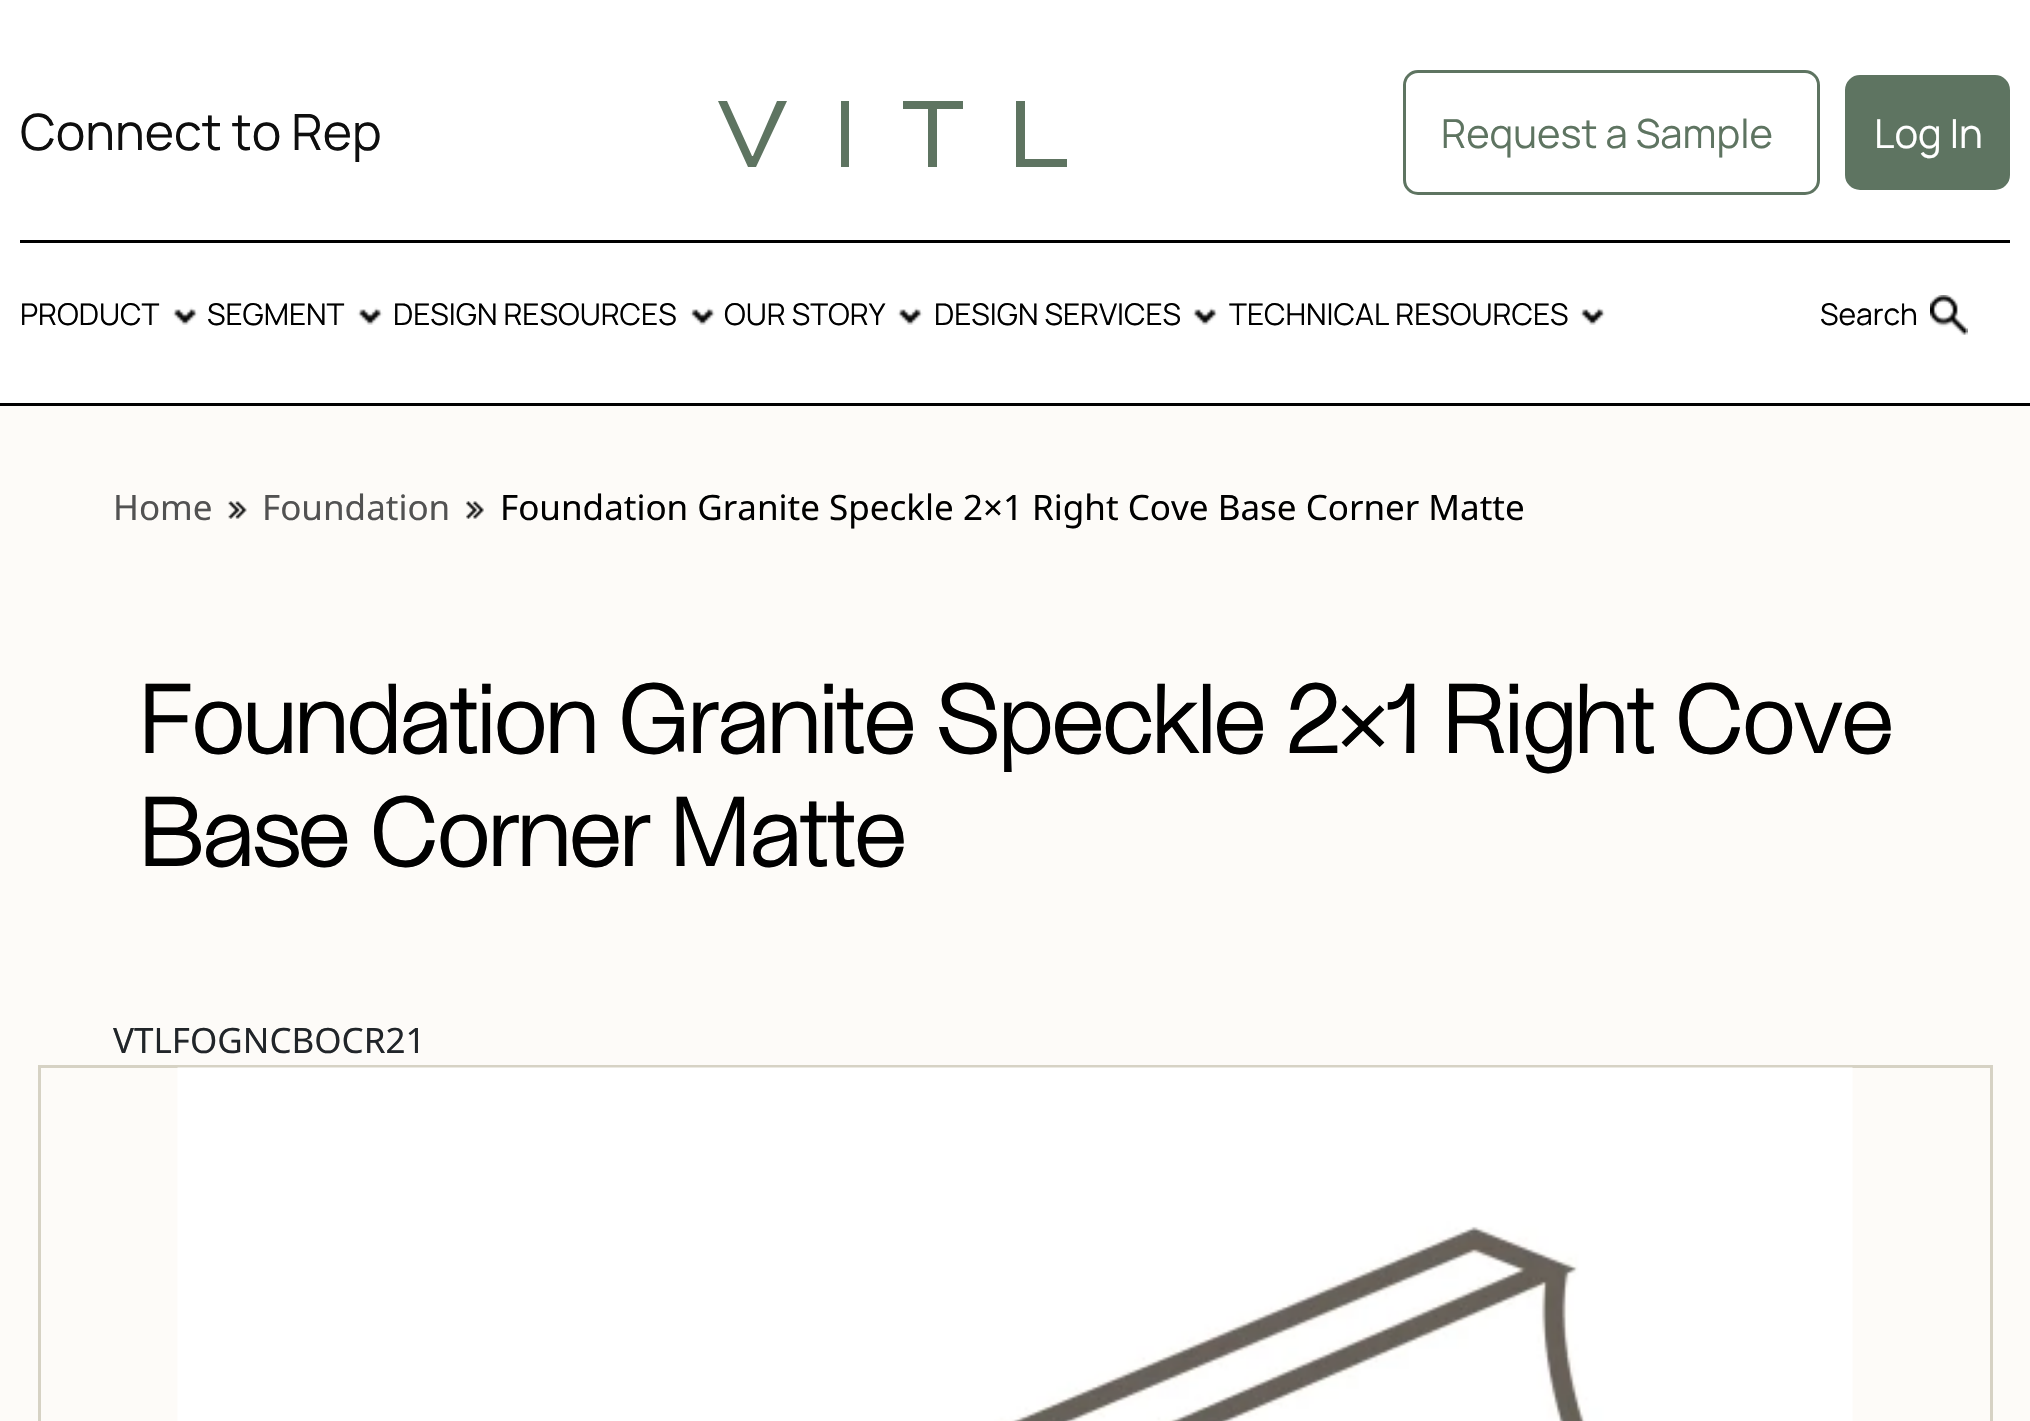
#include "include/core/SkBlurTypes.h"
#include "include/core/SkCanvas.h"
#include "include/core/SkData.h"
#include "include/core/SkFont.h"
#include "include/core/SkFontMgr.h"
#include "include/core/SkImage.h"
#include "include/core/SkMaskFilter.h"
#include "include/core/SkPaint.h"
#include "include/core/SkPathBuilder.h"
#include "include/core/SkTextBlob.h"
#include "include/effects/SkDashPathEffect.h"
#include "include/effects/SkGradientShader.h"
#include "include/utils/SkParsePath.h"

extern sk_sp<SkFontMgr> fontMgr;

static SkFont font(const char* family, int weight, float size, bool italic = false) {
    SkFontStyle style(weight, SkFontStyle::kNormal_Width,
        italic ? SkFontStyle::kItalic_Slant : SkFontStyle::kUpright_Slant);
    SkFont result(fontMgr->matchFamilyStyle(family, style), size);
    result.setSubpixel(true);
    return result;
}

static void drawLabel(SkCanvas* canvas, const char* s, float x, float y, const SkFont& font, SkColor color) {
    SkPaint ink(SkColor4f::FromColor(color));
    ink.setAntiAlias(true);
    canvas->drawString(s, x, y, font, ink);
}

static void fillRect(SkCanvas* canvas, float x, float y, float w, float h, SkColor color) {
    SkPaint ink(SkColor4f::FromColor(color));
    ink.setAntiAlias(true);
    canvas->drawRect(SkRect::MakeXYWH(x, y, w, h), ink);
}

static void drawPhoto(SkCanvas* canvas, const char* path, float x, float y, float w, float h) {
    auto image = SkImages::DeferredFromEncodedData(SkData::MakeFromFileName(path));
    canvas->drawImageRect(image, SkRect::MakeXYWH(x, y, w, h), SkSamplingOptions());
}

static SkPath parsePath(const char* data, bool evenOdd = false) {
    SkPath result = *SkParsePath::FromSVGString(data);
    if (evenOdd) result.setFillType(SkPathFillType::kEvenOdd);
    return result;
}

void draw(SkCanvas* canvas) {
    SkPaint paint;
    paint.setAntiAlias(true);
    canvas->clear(0xFFFDFBF8);
    fillRect(canvas, 0, 0, 2030, 403, 0xFFFFFFFF);
    fillRect(canvas, 0, 403, 2030, 3, 0xFF000000);
    fillRect(canvas, 20, 240, 1990, 3, 0xFF000000);
    SkFont font1 = font("Manrope", 400, 50);
    drawLabel(canvas, "Connect to Rep", 20, 150, font1, 0xFF0E0E0E);
    paint.setColor(0xFF5E7461);
    canvas->drawPath(parsePath("M777 101L753 156H752L727 101H718L748 167H756L787 101ZM841 167H849V101H841ZM903 101V109H928V167H937V109H963V101ZM1016 101V167H1067V159H1025V101Z"), paint);
    paint.setStroke(true);
    paint.setStrokeWidth(3);
    canvas->drawRoundRect(SkRect::MakeXYWH(1404.5f, 71.5f, 414, 122), 13.5f, 13.5f, paint);
    SkFont font2 = font("Manrope", 400, 40);
    drawLabel(canvas, "Request a Sample", 1441, 148, font2, 0xFF5E7461);
    paint.setStroke(false);
    canvas->drawRoundRect(SkRect::MakeXYWH(1846.5f, 76.5f, 162, 112), 13.5f, 13.5f, paint);
    paint.setStroke(true);
    canvas->drawRoundRect(SkRect::MakeXYWH(1846.5f, 76.5f, 162, 112), 13.5f, 13.5f, paint);
    drawLabel(canvas, "Log In", 1874, 148, font2, 0xFFFFFFFF);
    SkFont font3 = font("Manrope", 400, 30);
    drawLabel(canvas, "PRODUCT", 20, 325, font3, 0xFF000000);
    drawPhoto(canvas, "assets/img1.png", 172, 307, 26, 18);
    drawLabel(canvas, "SEGMENT", 207, 325, font3, 0xFF000000);
    drawPhoto(canvas, "assets/img1.png", 357, 307, 26, 18);
    drawLabel(canvas, "DESIGN RESOURCES", 393, 325, font3, 0xFF000000);
    drawPhoto(canvas, "assets/img2.png", 690, 307, 25, 18);
    drawLabel(canvas, "OUR STORY", 724, 325, font3, 0xFF000000);
    drawPhoto(canvas, "assets/img1.png", 897, 307, 26, 18);
    drawLabel(canvas, "DESIGN SERVICES", 934, 325, font3, 0xFF000000);
    drawPhoto(canvas, "assets/img1.png", 1192, 307, 26, 18);
    drawLabel(canvas, "TECHNICAL RESOURCES", 1229, 325, font3, 0xFF000000);
    drawPhoto(canvas, "assets/img3.png", 1580, 307, 25, 18);
    drawLabel(canvas, "Search", 1820, 325, font3, 0xFF000000);
    drawPhoto(canvas, "assets/img4.png", 1930, 295, 38, 40);
    SkFont font4 = font("Noto Sans", 400, 35);
    drawLabel(canvas, "Home", 113, 520, font4, 0xFF525252);
    drawPhoto(canvas, "assets/img5.png", 228, 501, 19, 18);
    drawLabel(canvas, "Foundation", 262, 520, font4, 0xFF525252);
    drawPhoto(canvas, "assets/img6.png", 466, 501, 18, 18);
    drawLabel(canvas, "Foundation Granite Speckle 2×1 Right Cove Base Corner Matte", 500, 520, font4, 0xFF000000);
    SkFont font5 = font("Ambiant", 700, 95);
    drawLabel(canvas, "Foundation Granite Speckle 2×1 Right Cove", 138, 753, font5, 0xFF000000);
    drawLabel(canvas, "Base Corner Matte", 138, 866, font5, 0xFF000000);
    drawLabel(canvas, "VTLFOGNCBOCR21", 113, 1053, font4, 0xFF212529);
    paint.setColor(0xFFD6D2C4);
    canvas->drawRect(SkRect::MakeXYWH(39.5f, 1066.5f, 1952, 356), paint);
    drawPhoto(canvas, "assets/img7.png", 177, 1067, 1676, 354);
}
